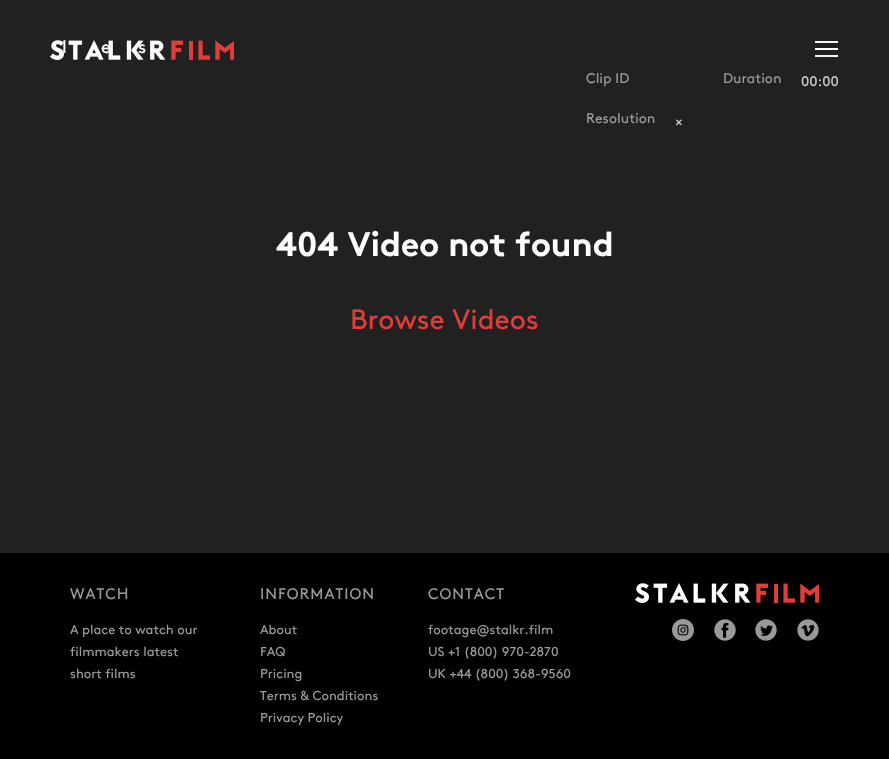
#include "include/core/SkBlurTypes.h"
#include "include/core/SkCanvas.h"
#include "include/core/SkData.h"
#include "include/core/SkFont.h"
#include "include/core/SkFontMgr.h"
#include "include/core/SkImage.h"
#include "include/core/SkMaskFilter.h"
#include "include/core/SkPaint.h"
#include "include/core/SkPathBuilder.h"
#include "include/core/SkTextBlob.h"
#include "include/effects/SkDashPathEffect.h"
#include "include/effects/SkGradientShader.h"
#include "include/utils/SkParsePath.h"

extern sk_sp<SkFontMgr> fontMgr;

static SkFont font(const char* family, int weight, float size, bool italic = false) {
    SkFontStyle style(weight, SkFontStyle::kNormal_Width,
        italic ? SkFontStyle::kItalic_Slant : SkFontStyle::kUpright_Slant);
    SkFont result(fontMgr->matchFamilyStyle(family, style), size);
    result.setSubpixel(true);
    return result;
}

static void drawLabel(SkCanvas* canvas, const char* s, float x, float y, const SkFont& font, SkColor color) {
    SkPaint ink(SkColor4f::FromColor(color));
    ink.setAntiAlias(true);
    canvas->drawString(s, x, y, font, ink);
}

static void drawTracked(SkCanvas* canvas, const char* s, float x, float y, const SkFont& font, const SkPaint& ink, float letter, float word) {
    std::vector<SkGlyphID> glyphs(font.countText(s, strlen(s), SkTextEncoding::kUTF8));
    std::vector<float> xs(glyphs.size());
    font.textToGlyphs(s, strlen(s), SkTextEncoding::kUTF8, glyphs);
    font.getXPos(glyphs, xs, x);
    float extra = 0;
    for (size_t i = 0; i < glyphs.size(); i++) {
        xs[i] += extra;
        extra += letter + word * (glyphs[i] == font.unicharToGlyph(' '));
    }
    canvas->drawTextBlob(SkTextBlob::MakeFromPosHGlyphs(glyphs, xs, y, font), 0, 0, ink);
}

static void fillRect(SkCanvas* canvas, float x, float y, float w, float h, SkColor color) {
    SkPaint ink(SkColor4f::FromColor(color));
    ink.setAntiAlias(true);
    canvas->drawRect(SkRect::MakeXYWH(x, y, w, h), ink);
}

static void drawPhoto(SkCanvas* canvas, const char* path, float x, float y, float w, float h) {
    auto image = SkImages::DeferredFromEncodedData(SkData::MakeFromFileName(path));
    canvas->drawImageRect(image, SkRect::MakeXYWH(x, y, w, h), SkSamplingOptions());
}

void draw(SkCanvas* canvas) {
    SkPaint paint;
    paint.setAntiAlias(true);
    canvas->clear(0xFF212121);
    SkFont font1 = font("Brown", 400, 18);
    drawLabel(canvas, "l", 62, 53, font1, 0xFFFFFFFF);
    drawLabel(canvas, "e", 101, 53, font1, 0xFFFFFFFF);
    drawLabel(canvas, "s", 138, 53, font1, 0xFFFFFFFF);
    drawPhoto(canvas, "assets/img1.png", 50, 40, 184, 20);
    drawPhoto(canvas, "assets/img2.png", 815, 41, 23, 16);
    SkFont font2 = font("Brown", 400, 14);
    drawLabel(canvas, "Clip ID", 586, 83, font2, 0xFF999999);
    drawLabel(canvas, "Duration", 723, 83, font2, 0xFF999999);
    drawLabel(canvas, "00:00", 801, 86, font2, 0xFFCCCCCC);
    drawLabel(canvas, "Resolution", 586, 123, font2, 0xFF999999);
    drawLabel(canvas, "×", 675, 126, font2, 0xFFCCCCCC);
    SkFont font3 = font("Brown", 700, 34);
    drawLabel(canvas, "404 Video not found", 276, 256, font3, 0xFFFFFFFF);
    SkFont font4 = font("Brown", 400, 28);
    drawLabel(canvas, "Browse Videos", 350, 329, font4, 0xFFE33D39);
    fillRect(canvas, 0, 553, 889, 206, 0xFF000000);
    SkFont font5 = font("Brown", 400, 15.25f);
    paint.setColor(0xFF999999);
    drawTracked(canvas, "WATCH", 70, 599, font5, paint, 1, 0);
    SkFont font6 = font("Brown", 400, 13);
    drawLabel(canvas, "A place to watch our", 70, 634, font6, 0xFF999999);
    drawLabel(canvas, "filmmakers latest", 70, 656, font6, 0xFF999999);
    drawLabel(canvas, "short films", 70, 678, font6, 0xFF999999);
    drawTracked(canvas, "INFORMATION", 260, 599, font5, paint, 1, 0);
    drawTracked(canvas, "CONTACT", 428, 599, font5, paint, 1, 0);
    drawPhoto(canvas, "assets/img3.png", 635, 583, 184, 20);
    drawLabel(canvas, "About", 260, 634, font6, 0xFF999999);
    drawLabel(canvas, "FAQ", 260, 656, font6, 0xFF999999);
    drawLabel(canvas, "Pricing", 260, 678, font6, 0xFF999999);
    drawLabel(canvas, "Terms & Conditions", 260, 700, font6, 0xFF999999);
    drawLabel(canvas, "Privacy Policy", 260, 722, font6, 0xFF999999);
    drawLabel(canvas, "footage@stalkr.film", 428, 634, font6, 0xFF999999);
    drawLabel(canvas, "US +1 (800) 970-2870", 428, 656, font6, 0xFF999999);
    drawLabel(canvas, "UK +44 (800) 368-9560", 428, 678, font6, 0xFF999999);
    drawPhoto(canvas, "assets/img4.png", 672, 619, 22, 22);
    drawPhoto(canvas, "assets/img5.png", 714, 619, 22, 22);
    drawPhoto(canvas, "assets/img6.png", 755, 619, 22, 22);
    drawPhoto(canvas, "assets/img7.png", 797, 619, 22, 22);
}
